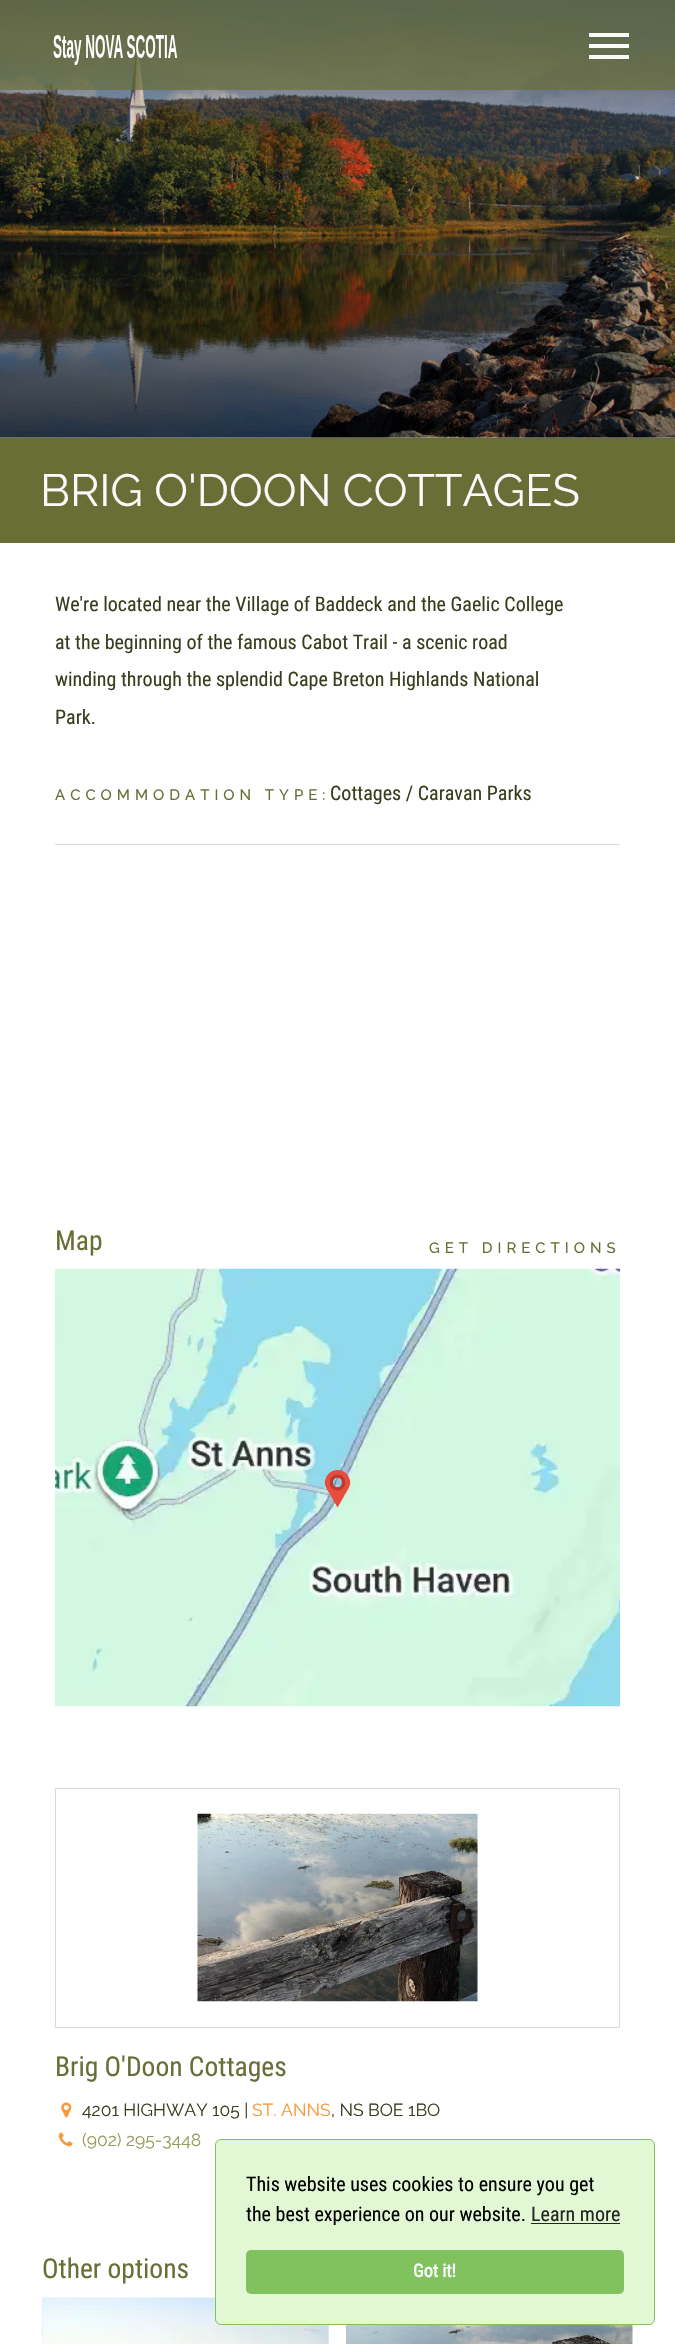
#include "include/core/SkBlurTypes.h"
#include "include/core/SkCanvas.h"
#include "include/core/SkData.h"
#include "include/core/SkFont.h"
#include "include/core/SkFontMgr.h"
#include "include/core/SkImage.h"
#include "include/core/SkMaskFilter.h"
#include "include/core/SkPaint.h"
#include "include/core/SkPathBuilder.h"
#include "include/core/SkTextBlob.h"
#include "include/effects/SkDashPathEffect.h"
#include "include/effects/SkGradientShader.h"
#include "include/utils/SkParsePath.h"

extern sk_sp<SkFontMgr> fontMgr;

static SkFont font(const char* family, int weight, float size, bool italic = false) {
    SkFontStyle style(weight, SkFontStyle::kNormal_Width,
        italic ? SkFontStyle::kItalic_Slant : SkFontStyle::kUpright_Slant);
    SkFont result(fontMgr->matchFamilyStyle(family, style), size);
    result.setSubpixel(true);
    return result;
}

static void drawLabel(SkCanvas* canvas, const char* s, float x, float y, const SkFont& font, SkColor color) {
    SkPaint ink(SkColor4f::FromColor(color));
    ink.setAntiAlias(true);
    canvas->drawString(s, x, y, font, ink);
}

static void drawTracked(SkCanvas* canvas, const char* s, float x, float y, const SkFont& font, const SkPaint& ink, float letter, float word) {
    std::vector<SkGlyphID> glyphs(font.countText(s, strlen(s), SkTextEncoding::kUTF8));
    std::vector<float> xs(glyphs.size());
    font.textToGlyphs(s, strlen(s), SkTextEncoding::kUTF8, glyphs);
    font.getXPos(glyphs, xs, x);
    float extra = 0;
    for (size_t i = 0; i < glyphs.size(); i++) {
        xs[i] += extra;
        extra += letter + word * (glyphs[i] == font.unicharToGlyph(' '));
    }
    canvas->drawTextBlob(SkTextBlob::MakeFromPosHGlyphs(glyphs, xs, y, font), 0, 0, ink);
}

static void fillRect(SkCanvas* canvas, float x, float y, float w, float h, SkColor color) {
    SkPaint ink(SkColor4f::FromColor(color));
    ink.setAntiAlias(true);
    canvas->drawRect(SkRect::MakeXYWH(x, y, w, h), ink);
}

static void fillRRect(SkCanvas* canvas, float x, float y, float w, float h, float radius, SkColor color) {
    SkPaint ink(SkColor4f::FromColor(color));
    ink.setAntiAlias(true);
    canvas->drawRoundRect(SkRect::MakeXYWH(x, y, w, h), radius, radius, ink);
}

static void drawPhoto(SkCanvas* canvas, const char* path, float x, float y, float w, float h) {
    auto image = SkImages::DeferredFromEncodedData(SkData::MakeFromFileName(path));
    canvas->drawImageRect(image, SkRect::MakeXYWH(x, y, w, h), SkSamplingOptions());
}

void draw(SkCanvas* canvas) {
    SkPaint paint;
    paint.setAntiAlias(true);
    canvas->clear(0xFFFFFFFF);
    drawPhoto(canvas, "assets/img2.png", 0, 0, 675, 438);
    {
        const SkColor colors[] = {0x4D000000, 0x00000000, 0x4D000000};
        const float stops[] = {0, 0.3f, 0.7f};
        const SkPoint ends[] = {{338, 0}, {338, 543}};
        paint.setShader(SkGradientShader::MakeLinear(ends, colors, stops, 3, SkTileMode::kClamp));
        paint.setAlpha(255);
    }
    canvas->drawRect(SkRect::MakeXYWH(0, 0, 675, 438), paint);
    fillRect(canvas, 0, 0, 675, 90, 0xB3696E36);
    drawPhoto(canvas, "assets/img1.png", 53, 35, 125, 30);
    fillRect(canvas, 589, 33, 40, 4, 0xFFFAFAFA);
    fillRect(canvas, 589, 44, 40, 4, 0xFFFAFAFA);
    fillRect(canvas, 589, 55, 40, 4, 0xFFFAFAFA);
    fillRect(canvas, 0, 438, 675, 105, 0xFF696E36);
    SkFont font1 = font("Raleway", 400, 45);
    drawLabel(canvas, "BRIG O'DOON COTTAGES", 40, 506, font1, 0xFFFAFAFA);
    fillRect(canvas, 55, 844, 565, 1, 0xFFD9D9D9);
    SkFont font2 = font("Roboto Condensed", 400, 20);
    drawLabel(canvas, "We're located near the Village of Baddeck and the Gaelic College", 55, 611, font2, 0xFF3A3D1D);
    drawLabel(canvas, "at the beginning of the famous Cabot Trail - a scenic road", 55, 649, font2, 0xFF3A3D1D);
    drawLabel(canvas, "winding through the splendid Cape Breton Highlands National", 55, 686, font2, 0xFF3A3D1D);
    drawLabel(canvas, "Park.", 55, 724, font2, 0xFF3A3D1D);
    SkFont font3 = font("Raleway", 500, 15);
    paint.setShader(nullptr);
    paint.setColor(0xFF696E36);
    drawTracked(canvas, "ACCOMMODATION TYPE:", 55, 800, font3, paint, 5, 0);
    drawLabel(canvas, "Cottages / Caravan Parks", 330, 800, font2, 0xFF3A3D1D);
    SkFont font4 = font("Roboto Condensed", 400, 27.5f);
    drawLabel(canvas, "Map", 55, 1250, font4, 0xFF696E36);
    drawTracked(canvas, "GET DIRECTIONS", 429, 1253, font3, paint, 5, 0);
    drawPhoto(canvas, "assets/img3.png", 55, 1268, 565, 439);
    drawPhoto(canvas, "assets/img4.png", 324, 1470, 27, 38);
    paint.setStroke(true);
    paint.setStrokeWidth(1);
    paint.setColor(0xFFD9D9D9);
    canvas->drawRect(SkRect::MakeXYWH(55.5f, 1788.5f, 564, 239), paint);
    drawPhoto(canvas, "assets/img5.png", 197, 1813, 281, 189);
    drawLabel(canvas, "Brig O'Doon Cottages", 55, 2076, font4, 0xFF696E36);
    drawPhoto(canvas, "assets/img6.png", 61, 2102, 11, 16);
    SkFont font5 = font("Raleway", 400, 17.5f);
    drawLabel(canvas, "4201 HIGHWAY 105 |", 82, 2116, font5, 0xFF3A3D1D);
    drawLabel(canvas, "ST. ANNS", 252, 2116, font5, 0xFFF89839);
    drawLabel(canvas, ", NS BOE 1BO", 331, 2116, font5, 0xFF3A3D1D);
    drawPhoto(canvas, "assets/img7.png", 58, 2132, 15, 15);
    drawLabel(canvas, "(902) 295-3448", 82, 2146, font5, 0xFF959A5A);
    drawLabel(canvas, "Other options", 42, 2278, font4, 0xFF696E36);
    drawPhoto(canvas, "assets/img8.png", 42, 2297, 287, 47);
    drawPhoto(canvas, "assets/img9.png", 346, 2325, 287, 19);
    paint.setStroke(false);
    paint.setColor(0xFFE2F7D4);
    canvas->drawRoundRect(SkRect::MakeXYWH(215.5f, 2139.5f, 439, 185), 5.5f, 5.5f, paint);
    paint.setStroke(true);
    paint.setColor(0xFF7FC25E);
    canvas->drawRoundRect(SkRect::MakeXYWH(215.5f, 2139.5f, 439, 185), 5.5f, 5.5f, paint);
    drawLabel(canvas, "This website uses cookies to ensure you get", 246, 2191, font2, 0xFF000000);
    drawLabel(canvas, "the best experience on our website.", 246, 2221, font2, 0xFF000000);
    drawLabel(canvas, "Learn more", 531, 2221, font2, 0xFF222520);
    fillRect(canvas, 531, 2223, 89, 1, 0xFF222520);
    fillRRect(canvas, 246, 2250, 378, 44, 5, 0xFF7FC25E);
    SkFont font6 = font("Roboto Condensed", 700, 18);
    drawLabel(canvas, "Got it!", 413, 2277, font6, 0xFFFAFAFA);
}
